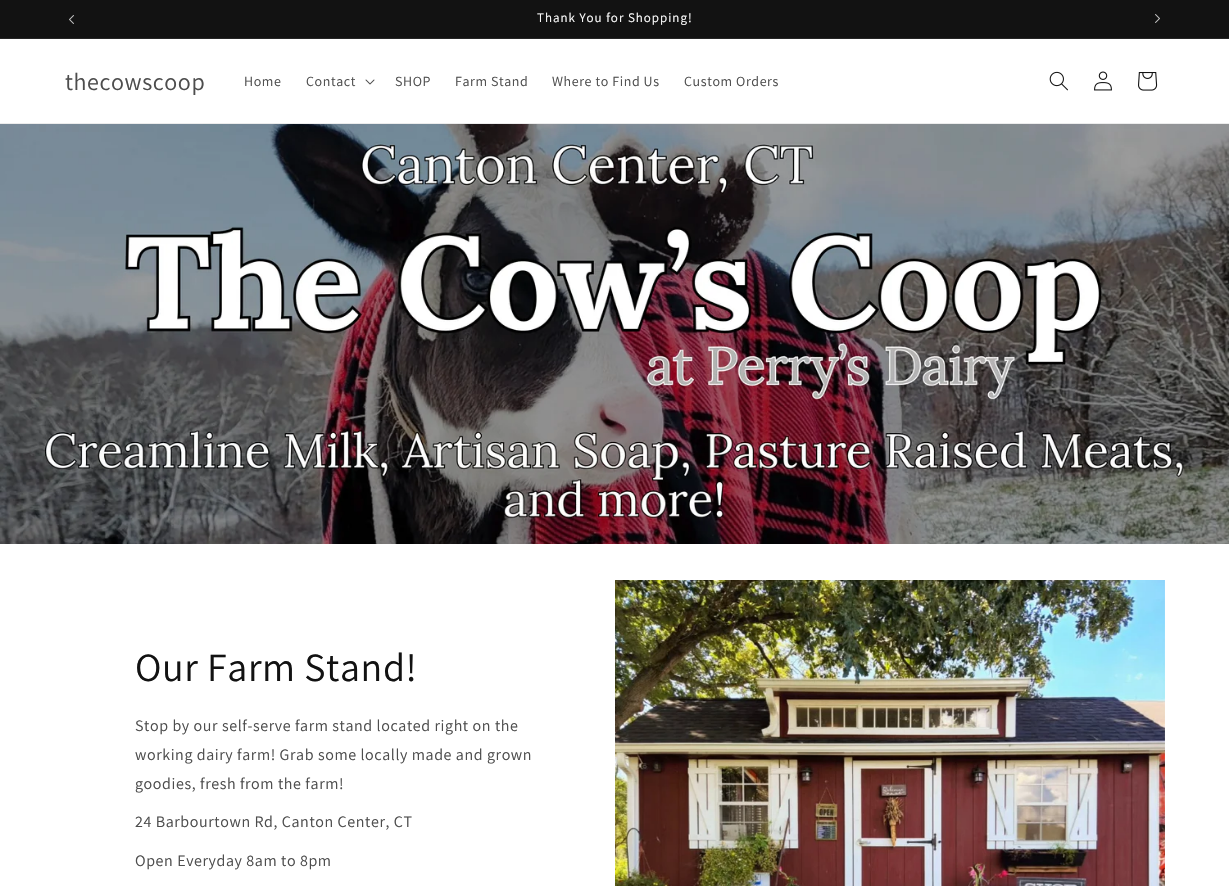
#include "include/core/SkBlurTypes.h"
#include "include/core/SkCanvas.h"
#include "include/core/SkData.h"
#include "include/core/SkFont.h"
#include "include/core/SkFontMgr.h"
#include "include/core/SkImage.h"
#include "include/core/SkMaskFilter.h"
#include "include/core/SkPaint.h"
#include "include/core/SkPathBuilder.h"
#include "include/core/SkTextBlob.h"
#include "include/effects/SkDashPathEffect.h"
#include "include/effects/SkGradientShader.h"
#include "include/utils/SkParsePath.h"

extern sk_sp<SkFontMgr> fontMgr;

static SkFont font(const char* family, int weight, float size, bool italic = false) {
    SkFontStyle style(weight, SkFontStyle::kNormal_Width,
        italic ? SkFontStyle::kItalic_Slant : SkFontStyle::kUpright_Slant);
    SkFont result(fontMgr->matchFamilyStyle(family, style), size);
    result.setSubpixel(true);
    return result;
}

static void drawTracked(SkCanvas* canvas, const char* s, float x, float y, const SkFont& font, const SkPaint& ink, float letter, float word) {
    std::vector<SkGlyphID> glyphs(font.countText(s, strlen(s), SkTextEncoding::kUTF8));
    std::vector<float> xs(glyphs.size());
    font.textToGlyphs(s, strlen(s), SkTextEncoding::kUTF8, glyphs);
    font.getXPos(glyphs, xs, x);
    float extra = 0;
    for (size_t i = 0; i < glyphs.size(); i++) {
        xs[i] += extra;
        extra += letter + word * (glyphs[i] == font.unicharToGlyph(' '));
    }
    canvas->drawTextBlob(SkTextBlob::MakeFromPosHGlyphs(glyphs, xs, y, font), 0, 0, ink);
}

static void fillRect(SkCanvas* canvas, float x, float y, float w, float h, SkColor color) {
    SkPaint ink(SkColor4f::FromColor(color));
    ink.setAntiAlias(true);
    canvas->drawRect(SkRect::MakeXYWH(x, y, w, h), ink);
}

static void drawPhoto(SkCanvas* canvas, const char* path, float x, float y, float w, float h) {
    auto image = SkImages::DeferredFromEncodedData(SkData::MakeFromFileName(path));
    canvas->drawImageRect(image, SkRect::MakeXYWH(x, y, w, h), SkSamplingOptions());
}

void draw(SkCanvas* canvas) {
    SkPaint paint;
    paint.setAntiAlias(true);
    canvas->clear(0xFFFFFFFF);
    fillRect(canvas, 0, 0, 1229, 38, 0xFF121212);
    fillRect(canvas, 0, 38, 1229, 1, 0xFF252525);
    drawPhoto(canvas, "assets/img1.png", 69, 15, 5, 9);
    SkFont font1 = font("Assistant", 400, 13);
    paint.setColor(0xFFFFFFFF);
    drawTracked(canvas, "Thank You for Shopping!", 537, 22, font1, paint, 1, 0);
    drawPhoto(canvas, "assets/img2.png", 1155, 14, 5, 9);
    fillRect(canvas, 0, 123, 1229, 1, 0xFFECECEC);
    SkFont font2 = font("Assistant", 400, 24);
    paint.setColor(0xFF4D4D4D);
    drawTracked(canvas, "thecowscoop", 65, 90, font2, paint, 0.6f, 0);
    SkFont font3 = font("Assistant", 400, 14);
    drawTracked(canvas, "Home", 244, 86, font3, paint, 0.6f, 0);
    drawTracked(canvas, "Contact", 306, 86, font3, paint, 0.6f, 0);
    drawPhoto(canvas, "assets/img3.png", 365, 79, 10, 6);
    drawTracked(canvas, "SHOP", 395, 86, font3, paint, 0.6f, 0);
    drawTracked(canvas, "Farm Stand", 455, 86, font3, paint, 0.6f, 0);
    drawTracked(canvas, "Where to Find Us", 552, 86, font3, paint, 0.6f, 0);
    drawTracked(canvas, "Custom Orders", 684, 86, font3, paint, 0.6f, 0);
    drawPhoto(canvas, "assets/img4.png", 1049, 71, 19, 20);
    drawPhoto(canvas, "assets/img5.png", 1094, 71, 18, 20);
    drawPhoto(canvas, "assets/img6.png", 1138, 72, 20, 19);
    drawPhoto(canvas, "assets/img7.png", 0, 124, 1229, 420);
    SkFont font4 = font("Assistant", 400, 40);
    paint.setColor(0xFF121212);
    drawTracked(canvas, "Our Farm Stand!", 135, 681, font4, paint, 0.6f, 0);
    SkFont font5 = font("Assistant", 400, 16);
    paint.setColor(0xFF4D4D4D);
    drawTracked(canvas, "Stop by our self-serve farm stand located right on the", 135, 731, font5, paint, 0.6f, 0);
    drawTracked(canvas, "working dairy farm! Grab some locally made and grown", 135, 760, font5, paint, 0.6f, 0);
    drawTracked(canvas, "goodies, fresh from the farm!", 135, 789, font5, paint, 0.6f, 0);
    drawTracked(canvas, "24 Barbourtown Rd, Canton Center, CT", 135, 827, font5, paint, 0.6f, 0);
    drawTracked(canvas, "Open Everyday 8am to 8pm", 135, 866, font5, paint, 0.6f, 0);
    drawPhoto(canvas, "assets/img8.png", 615, 580, 550, 306);
}
